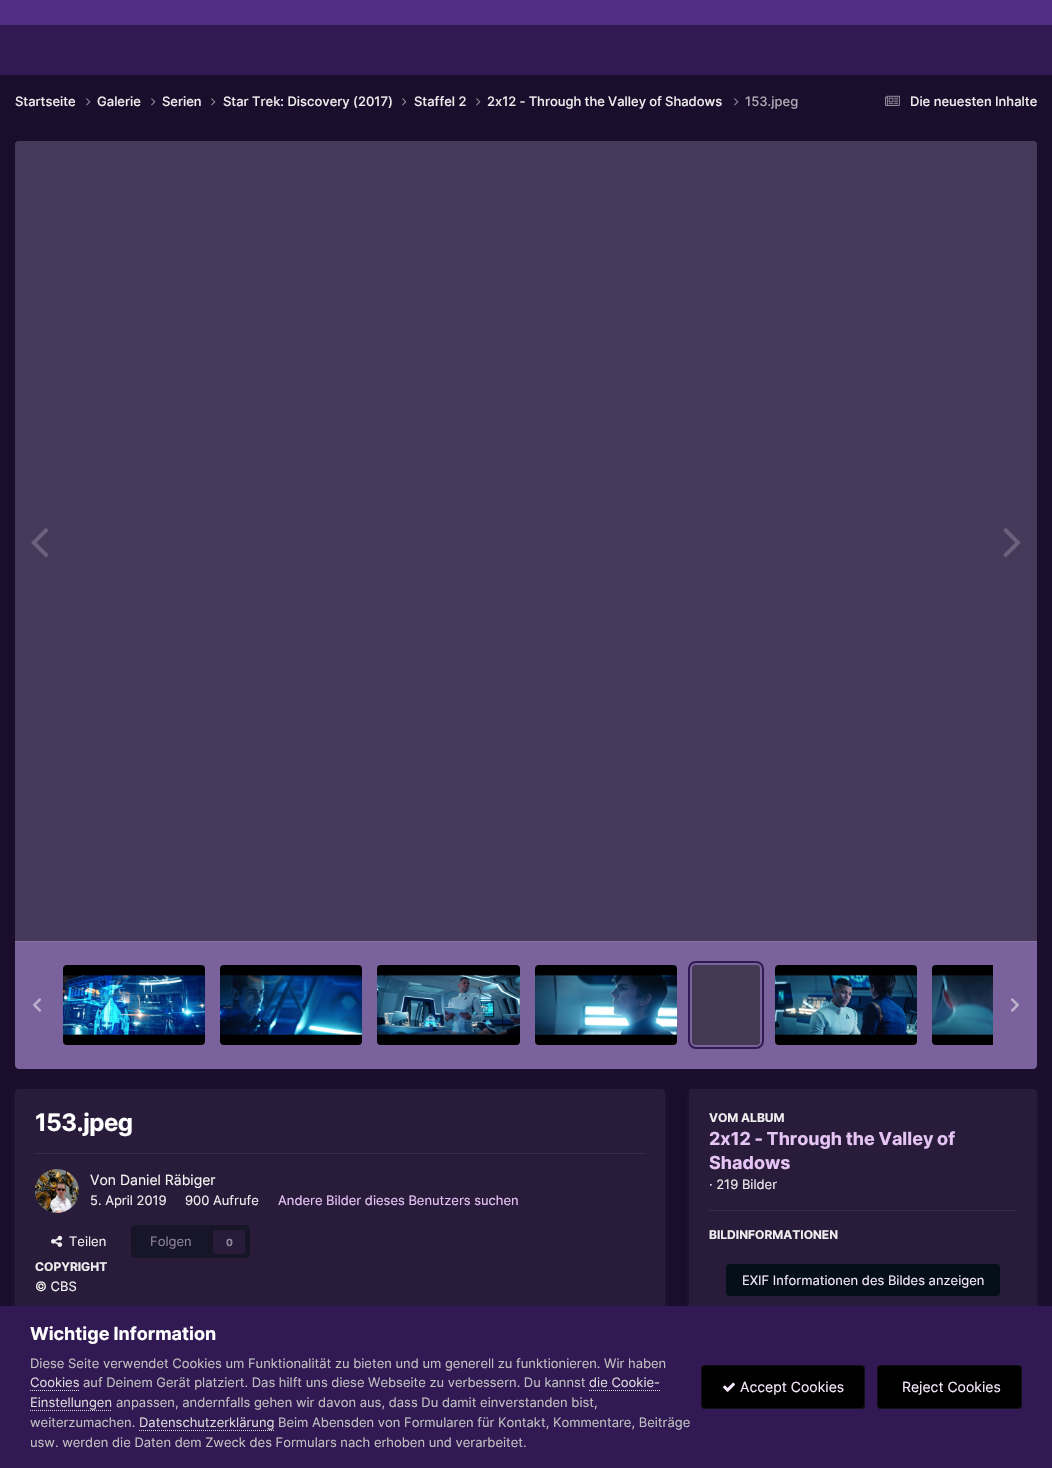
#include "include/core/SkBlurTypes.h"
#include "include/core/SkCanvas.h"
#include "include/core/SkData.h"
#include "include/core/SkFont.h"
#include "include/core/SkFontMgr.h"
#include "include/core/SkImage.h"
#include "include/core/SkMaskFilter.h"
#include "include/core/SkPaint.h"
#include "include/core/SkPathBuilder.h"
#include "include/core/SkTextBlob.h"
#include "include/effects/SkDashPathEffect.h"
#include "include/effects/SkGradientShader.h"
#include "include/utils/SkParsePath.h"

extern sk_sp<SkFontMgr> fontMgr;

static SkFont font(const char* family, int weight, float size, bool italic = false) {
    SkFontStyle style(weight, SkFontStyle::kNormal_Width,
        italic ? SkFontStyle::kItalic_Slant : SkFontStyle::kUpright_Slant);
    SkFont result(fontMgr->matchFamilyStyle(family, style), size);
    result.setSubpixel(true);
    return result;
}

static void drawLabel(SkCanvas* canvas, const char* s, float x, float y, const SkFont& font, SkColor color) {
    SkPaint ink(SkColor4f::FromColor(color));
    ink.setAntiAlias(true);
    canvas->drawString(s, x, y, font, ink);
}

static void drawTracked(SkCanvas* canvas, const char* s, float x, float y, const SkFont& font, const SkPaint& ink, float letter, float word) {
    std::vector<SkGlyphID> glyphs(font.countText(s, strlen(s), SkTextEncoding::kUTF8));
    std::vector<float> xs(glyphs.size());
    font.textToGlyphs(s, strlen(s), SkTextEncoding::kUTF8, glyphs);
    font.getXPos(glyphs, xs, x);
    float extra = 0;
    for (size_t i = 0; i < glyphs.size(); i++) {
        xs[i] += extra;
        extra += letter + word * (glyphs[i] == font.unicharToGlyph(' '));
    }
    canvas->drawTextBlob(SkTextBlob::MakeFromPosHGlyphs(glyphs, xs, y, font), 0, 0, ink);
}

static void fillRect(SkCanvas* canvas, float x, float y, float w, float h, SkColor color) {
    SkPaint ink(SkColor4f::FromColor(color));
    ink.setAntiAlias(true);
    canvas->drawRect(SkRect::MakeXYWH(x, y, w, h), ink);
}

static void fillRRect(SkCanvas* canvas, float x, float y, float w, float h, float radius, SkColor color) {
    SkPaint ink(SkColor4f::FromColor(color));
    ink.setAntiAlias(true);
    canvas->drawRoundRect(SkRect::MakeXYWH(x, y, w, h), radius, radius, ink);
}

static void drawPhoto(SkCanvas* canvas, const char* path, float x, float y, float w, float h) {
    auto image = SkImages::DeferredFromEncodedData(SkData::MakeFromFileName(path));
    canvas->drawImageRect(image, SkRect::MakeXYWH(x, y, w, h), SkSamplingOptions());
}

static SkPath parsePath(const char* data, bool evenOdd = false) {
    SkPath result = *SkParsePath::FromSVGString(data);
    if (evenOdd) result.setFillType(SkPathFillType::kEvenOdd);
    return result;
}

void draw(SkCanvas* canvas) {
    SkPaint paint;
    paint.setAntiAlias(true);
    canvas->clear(0xFF1B0E2D);
    fillRect(canvas, 0, 0, 1052, 25, 0xFF522E87);
    fillRect(canvas, 0, 25, 1052, 50, 0xFF311953);
    SkFont font1 = font("Inter", 500, 13);
    drawLabel(canvas, "Startseite", 15, 106, font1, 0xFFEEEEEE);
    drawPhoto(canvas, "assets/img1.png", 86, 98, 5, 8);
    drawLabel(canvas, "Galerie", 97, 106, font1, 0xFFEEEEEE);
    drawPhoto(canvas, "assets/img1.png", 151, 98, 5, 8);
    drawLabel(canvas, "Serien", 162, 106, font1, 0xFFEEEEEE);
    drawPhoto(canvas, "assets/img1.png", 211, 98, 5, 8);
    drawLabel(canvas, "Star Trek: Discovery (2017)", 223, 106, font1, 0xFFEEEEEE);
    drawPhoto(canvas, "assets/img1.png", 402, 98, 5, 8);
    drawLabel(canvas, "Staffel 2", 414, 106, font1, 0xFFEEEEEE);
    drawPhoto(canvas, "assets/img1.png", 476, 98, 5, 8);
    paint.setColor(0xFFEEEEEE);
    drawTracked(canvas, "2x12 - Through the Valley of Shadows", 487, 106, font1, paint, 0, -0.25f);
    drawPhoto(canvas, "assets/img1.png", 734, 98, 5, 8);
    drawLabel(canvas, "153.jpeg", 745, 106, font1, 0xFFAFABB4);
    drawPhoto(canvas, "assets/img2.png", 885, 95, 15, 11);
    drawLabel(canvas, "Die neuesten Inhalte", 910, 106, font1, 0xFFEEEEEE);
    paint.setColor(0xFFAF8EE0);
    canvas->drawPath(parsePath("M19 141H1033C1035 141 1037 143 1037 145V941H15V145C15 143 17 141 19 141Z"), paint);
    paint.setColor(0x99000000);
    canvas->drawPath(parsePath("M19 141H1033C1035 141 1037 143 1037 145V941H15V145C15 143 17 141 19 141Z"), paint);
    drawPhoto(canvas, "assets/img3.png", 31, 528, 18, 30);
    drawPhoto(canvas, "assets/img4.png", 1003, 528, 18, 30);
    paint.setColor(0xFFAF8EE0);
    canvas->drawPath(parsePath("M15 941H1037V1065C1037 1067 1035 1069 1033 1069H19C17 1069 15 1067 15 1065Z"), paint);
    paint.setColor(0x4D000000);
    canvas->drawPath(parsePath("M15 941H1037V1065C1037 1067 1035 1069 1033 1069H19C17 1069 15 1067 15 1065Z"), paint);
    fillRect(canvas, 15, 941, 1022, 1, 0xFF8873A7);
    drawPhoto(canvas, "assets/img5.png", 63, 965, 142, 80);
    drawPhoto(canvas, "assets/img6.png", 220, 965, 142, 80);
    drawPhoto(canvas, "assets/img7.png", 377, 965, 143, 80);
    drawPhoto(canvas, "assets/img8.png", 535, 965, 142, 80);
    fillRRect(canvas, 692, 965, 68, 80, 4, 0xFF141414);
    fillRRect(canvas, 692, 965, 68, 80, 4, 0x4DAF8EE0);
    paint.setStroke(true);
    paint.setStrokeWidth(2);
    paint.setColor(0xFF311953);
    canvas->drawRoundRect(SkRect::MakeXYWH(689, 962, 74, 86), 7, 7, paint);
    drawPhoto(canvas, "assets/img9.png", 775, 965, 142, 80);
    drawPhoto(canvas, "assets/img10.png", 932, 965, 61, 80);
    drawPhoto(canvas, "assets/img11.png", 33, 998, 8, 14);
    drawPhoto(canvas, "assets/img12.png", 1011, 998, 8, 14);
    paint.setStroke(false);
    paint.setColor(0x1AAF8EE0);
    paint.setMaskFilter(SkMaskFilter::MakeBlur(kNormal_SkBlurStyle, 2));
    canvas->drawRoundRect(SkRect::MakeXYWH(16, 1092, 648, 284), 3, 3, paint);
    paint.setMaskFilter(nullptr);
    fillRRect(canvas, 15, 1089, 650, 286, 4, 0xFF291C3B);
    SkFont font2 = font("Inter", 700, 24);
    paint.setColor(0xFFFFFFFF);
    drawTracked(canvas, "153.jpeg", 35, 1131, font2, paint, -0.5f, 0);
    fillRect(canvas, 35, 1153, 610, 1, 0xFF392D4A);
    drawPhoto(canvas, "assets/img13.png", 35, 1169, 44, 44);
    SkFont font3 = font("Inter", 400, 14);
    drawLabel(canvas, "Von Daniel Räbiger", 90, 1185, font3, 0xFFF3F6F4);
    SkFont font4 = font("Inter", 400, 13);
    drawLabel(canvas, "5. April 2019", 90, 1205, font4, 0xFFEEEEEE);
    drawLabel(canvas, "900 Aufrufe", 185, 1205, font4, 0xFFEEEEEE);
    drawLabel(canvas, "Andere Bilder dieses Benutzers suchen", 278, 1205, font4, 0xFFE6C4F5);
    drawPhoto(canvas, "assets/img14.png", 51, 1235, 12, 12);
    drawLabel(canvas, "Teilen", 69, 1246, font4, 0xFFEEEEEE);
    fillRRect(canvas, 131, 1225, 119, 33, 4, 0xFF171629);
    drawLabel(canvas, "Folgen", 150, 1246, font4, 0xFF90829C);
    fillRRect(canvas, 213, 1230, 32, 24, 4, 0xFF291C3B);
    SkFont font5 = font("Inter", 700, 10);
    drawLabel(canvas, "0", 226, 1246, font5, 0xFF8E8998);
    SkFont font6 = font("Inter", 700, 12);
    drawLabel(canvas, "COPYRIGHT", 35, 1271, font6, 0xFFEEEEEE);
    drawLabel(canvas, "© CBS", 35, 1291, font4, 0xFFF3F6F4);
    paint.setColor(0x1AAF8EE0);
    paint.setMaskFilter(SkMaskFilter::MakeBlur(kNormal_SkBlurStyle, 2));
    canvas->drawRoundRect(SkRect::MakeXYWH(690, 1092, 346, 225), 3, 3, paint);
    paint.setMaskFilter(nullptr);
    fillRRect(canvas, 689, 1089, 348, 227, 4, 0xFF291C3B);
    drawLabel(canvas, "VOM ALBUM", 709, 1122, font6, 0xFFEEEEEE);
    SkFont font7 = font("Inter", 700, 18);
    paint.setColor(0xFFE6C4F5);
    drawTracked(canvas, "2x12 - Through the Valley of", 709, 1145, font7, paint, 0, -0.5f);
    drawLabel(canvas, "Shadows", 709, 1169, font7, 0xFFE6C4F5);
    drawLabel(canvas, "· 219 Bilder", 709, 1189, font4, 0xFFEEEEEE);
    fillRect(canvas, 709, 1210, 308, 1, 0xFF392D4A);
    drawLabel(canvas, "BILDINFORMATIONEN", 709, 1239, font6, 0xFFEEEEEE);
    fillRRect(canvas, 726, 1264, 274, 32, 4, 0xFF050F17);
    drawLabel(canvas, "EXIF Informationen des Bildes anzeigen", 742, 1285, font4, 0xFFF6E8FC);
    fillRect(canvas, 0, 1306, 1052, 162, 0xFF311953);
    drawLabel(canvas, "Wichtige Information", 30, 1340, font7, 0xFFFFFFFF);
    drawLabel(canvas, "Diese Seite verwendet Cookies um Funktionalität zu bieten und um generell zu funktionieren. Wir haben", 30, 1368, font4, 0xFFC0C0C0);
    drawLabel(canvas, "Cookies", 30, 1387, font4, 0xFFDADADA);
    paint.setStroke(true);
    paint.setStrokeWidth(1);
    paint.setColor(0xFFDADADA);
    paint.setPathEffect(SkDashPathEffect::Make({{1, 1}}, 0));
    canvas->drawPath(parsePath("M30 1390.5H80"), paint);
    paint.setPathEffect(nullptr);
    drawLabel(canvas, "auf Deinem Gerät platziert. Das hilft uns diese Webseite zu verbessern. Du kannst", 83, 1387, font4, 0xFFC0C0C0);
    drawLabel(canvas, "die Cookie-", 589, 1387, font4, 0xFFDADADA);
    paint.setPathEffect(SkDashPathEffect::Make({{1, 1}}, 0));
    canvas->drawPath(parsePath("M589 1390.5H660"), paint);
    paint.setPathEffect(nullptr);
    drawLabel(canvas, "Einstellungen", 30, 1407, font4, 0xFFDADADA);
    paint.setPathEffect(SkDashPathEffect::Make({{1, 1}}, 0));
    canvas->drawPath(parsePath("M30 1410.5H112"), paint);
    paint.setPathEffect(nullptr);
    drawLabel(canvas, "anpassen, andernfalls gehen wir davon aus, dass Du damit einverstanden bist,", 116, 1407, font4, 0xFFC0C0C0);
    drawLabel(canvas, "weiterzumachen.", 30, 1427, font4, 0xFFC0C0C0);
    drawLabel(canvas, "Datenschutzerklärung", 139, 1427, font4, 0xFFDADADA);
    paint.setPathEffect(SkDashPathEffect::Make({{1, 1}}, 0));
    canvas->drawPath(parsePath("M139 1430.5H274"), paint);
    paint.setPathEffect(nullptr);
    drawLabel(canvas, "Beim Abensden von Formularen für Kontakt, Kommentare, Beiträge", 278, 1427, font4, 0xFFC0C0C0);
    drawLabel(canvas, "usw. werden die Daten dem Zweck des Formulars nach erhoben und verarbeitet.", 30, 1447, font4, 0xFFC0C0C0);
    fillRRect(canvas, 701, 1365, 164, 44, 4, 0xFF000000);
    paint.setColor(0x12F6E8FC);
    canvas->drawRoundRect(SkRect::MakeXYWH(701.5f, 1365.5f, 163, 43), 3.5f, 3.5f, paint);
    drawPhoto(canvas, "assets/img15.png", 723, 1382, 12, 10);
    drawLabel(canvas, "Accept Cookies", 740, 1392, font3, 0xFFF6E8FC);
    fillRRect(canvas, 877, 1365, 145, 44, 4, 0xFF000000);
    canvas->drawRoundRect(SkRect::MakeXYWH(877.5f, 1365.5f, 144, 43), 3.5f, 3.5f, paint);
    drawLabel(canvas, "Reject Cookies", 902, 1392, font3, 0xFFF6E8FC);
}
